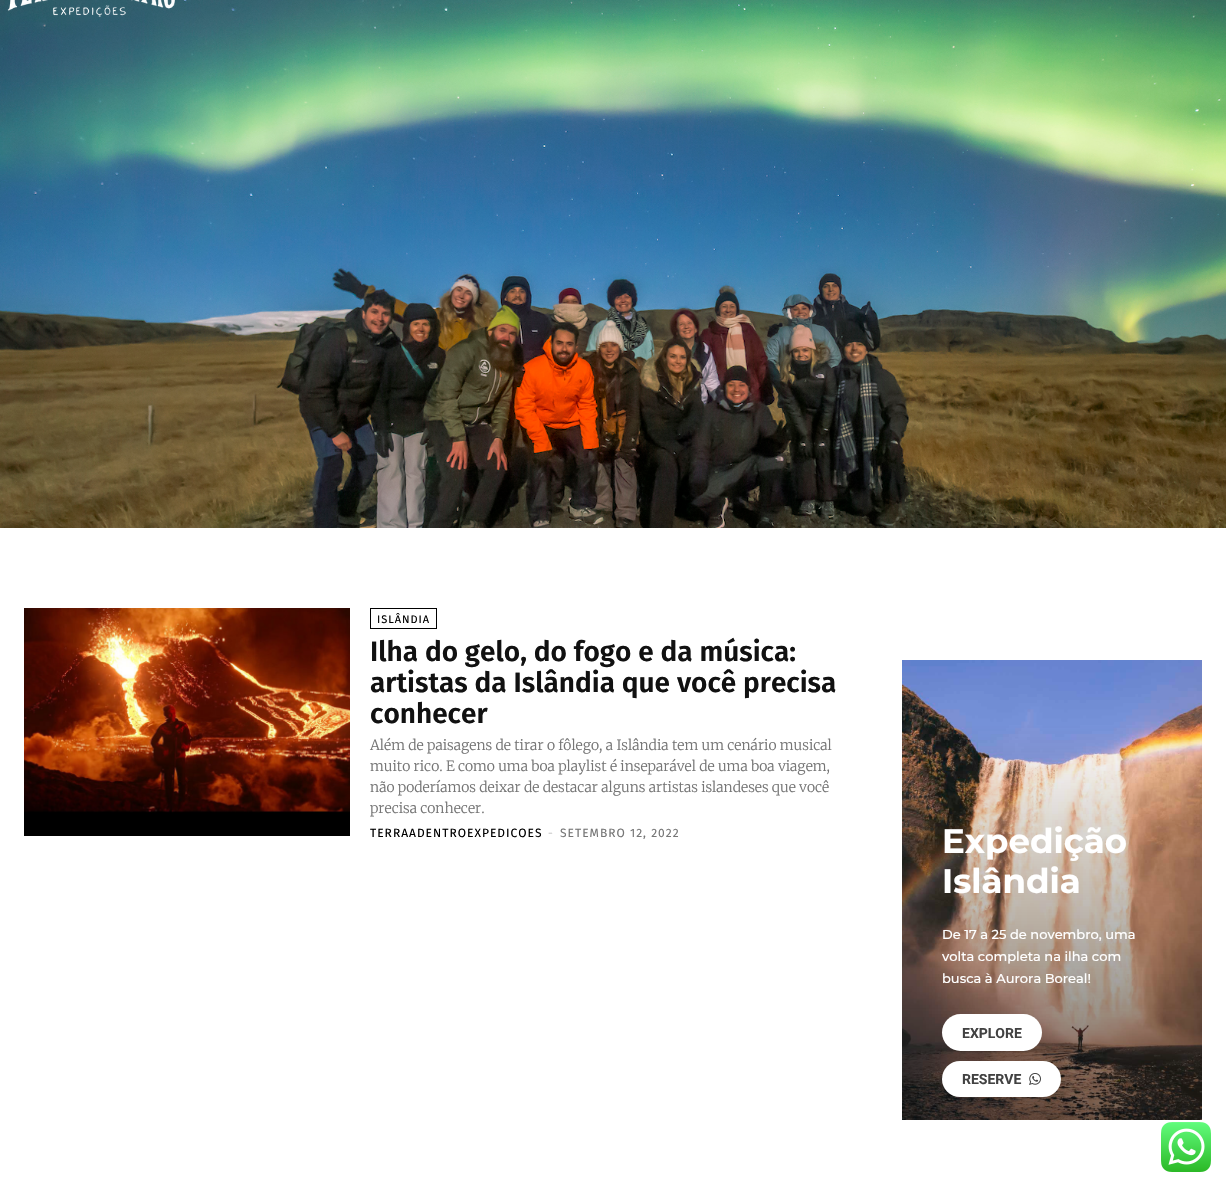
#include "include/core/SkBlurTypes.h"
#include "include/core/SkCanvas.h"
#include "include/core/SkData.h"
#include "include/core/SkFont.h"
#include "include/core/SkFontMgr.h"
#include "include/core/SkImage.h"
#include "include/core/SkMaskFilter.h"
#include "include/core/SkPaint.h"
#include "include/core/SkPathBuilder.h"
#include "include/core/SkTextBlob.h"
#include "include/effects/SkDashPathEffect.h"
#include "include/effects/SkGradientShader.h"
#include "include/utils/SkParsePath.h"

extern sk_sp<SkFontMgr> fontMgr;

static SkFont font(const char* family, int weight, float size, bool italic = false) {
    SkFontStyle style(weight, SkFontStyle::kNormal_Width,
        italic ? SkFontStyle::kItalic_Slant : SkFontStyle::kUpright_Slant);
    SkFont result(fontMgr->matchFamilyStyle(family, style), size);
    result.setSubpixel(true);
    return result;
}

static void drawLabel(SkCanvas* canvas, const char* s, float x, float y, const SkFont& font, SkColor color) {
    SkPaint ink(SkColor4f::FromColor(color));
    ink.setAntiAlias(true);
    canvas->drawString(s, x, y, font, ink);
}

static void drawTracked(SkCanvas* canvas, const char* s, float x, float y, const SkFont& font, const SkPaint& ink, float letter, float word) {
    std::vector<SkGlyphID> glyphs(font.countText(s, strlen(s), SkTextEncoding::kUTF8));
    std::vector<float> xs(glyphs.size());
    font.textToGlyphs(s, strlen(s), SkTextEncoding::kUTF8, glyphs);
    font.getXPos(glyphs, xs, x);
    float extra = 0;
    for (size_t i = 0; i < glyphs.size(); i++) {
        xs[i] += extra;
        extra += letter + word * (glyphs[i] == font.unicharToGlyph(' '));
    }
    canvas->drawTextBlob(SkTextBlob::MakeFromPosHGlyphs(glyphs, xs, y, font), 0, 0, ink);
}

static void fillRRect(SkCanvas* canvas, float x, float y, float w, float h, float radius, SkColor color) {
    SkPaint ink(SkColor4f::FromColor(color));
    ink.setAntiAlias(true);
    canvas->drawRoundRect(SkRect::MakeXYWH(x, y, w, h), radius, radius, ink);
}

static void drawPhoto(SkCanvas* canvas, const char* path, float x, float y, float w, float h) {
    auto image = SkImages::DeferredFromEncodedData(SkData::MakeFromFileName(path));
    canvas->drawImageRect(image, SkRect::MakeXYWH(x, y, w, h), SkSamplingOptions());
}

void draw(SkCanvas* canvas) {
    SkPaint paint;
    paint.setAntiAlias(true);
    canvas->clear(0xFFFFFFFF);
    drawPhoto(canvas, "assets/img2.png", 0, 0, 1226, 528);
    drawPhoto(canvas, "assets/img1.png", 7, 0, 168, 17);
    drawPhoto(canvas, "assets/img3.png", 24, 608, 326, 228);
    paint.setStroke(true);
    paint.setStrokeWidth(1);
    paint.setColor(0xFF000000);
    canvas->drawRect(SkRect::MakeXYWH(370.5f, 608.5f, 66, 20), paint);
    SkFont font1 = font("Fira Sans", 400, 11);
    paint.setStroke(false);
    drawTracked(canvas, "ISLÂNDIA", 377, 623, font1, paint, 1, 0);
    SkFont font2 = font("Fira Sans", 600, 28);
    drawLabel(canvas, "Ilha do gelo, do fogo e da música:", 370, 661, font2, 0xFF111111);
    drawLabel(canvas, "artistas da Islândia que você precisa", 370, 692, font2, 0xFF111111);
    drawLabel(canvas, "conhecer", 370, 723, font2, 0xFF111111);
    SkFont font3 = font("Merriweather", 300, 14);
    drawLabel(canvas, "Além de paisagens de tirar o fôlego, a Islândia tem um cenário musical", 370, 750, font3, 0xFF767676);
    drawLabel(canvas, "muito rico. E como uma boa playlist é inseparável de uma boa viagem,", 370, 771, font3, 0xFF767676);
    drawLabel(canvas, "não poderíamos deixar de destacar alguns artistas islandeses que você", 370, 792, font3, 0xFF767676);
    drawLabel(canvas, "precisa conhecer.", 370, 813, font3, 0xFF767676);
    SkFont font4 = font("Fira Sans", 400, 12);
    drawTracked(canvas, "TERRAADENTROEXPEDICOES", 370, 837, font4, paint, 1, 0);
    paint.setColor(0xFFCCCCCC);
    drawTracked(canvas, "-", 548, 837, font4, paint, 1, 0);
    paint.setColor(0xFF767676);
    drawTracked(canvas, "SETEMBRO 12, 2022", 560, 837, font4, paint, 1, 0);
    drawPhoto(canvas, "assets/img4.png", 902, 660, 300, 460);
    SkFont font5 = font("Montserrat", 700, 34);
    drawLabel(canvas, "Expedição", 942, 853, font5, 0xFFFFFFFF);
    drawLabel(canvas, "Islândia", 942, 893, font5, 0xFFFFFFFF);
    SkFont font6 = font("Montserrat", 500, 13);
    drawLabel(canvas, "De 17 a 25 de novembro, uma", 942, 939, font6, 0xFFFFFFFF);
    drawLabel(canvas, "volta completa na ilha com", 942, 961, font6, 0xFFFFFFFF);
    drawLabel(canvas, "busca à Aurora Boreal!", 942, 983, font6, 0xFFFFFFFF);
    fillRRect(canvas, 942, 1014, 100, 37, 18.5f, 0xFFFFFFFF);
    SkFont font7 = font("Roboto", 700, 14);
    drawLabel(canvas, "EXPLORE", 962, 1038, font7, 0xFF424242);
    fillRRect(canvas, 942, 1061, 119, 36, 18, 0xFFFFFFFF);
    drawLabel(canvas, "RESERVE", 962, 1084, font7, 0xFF424242);
    drawPhoto(canvas, "assets/img5.png", 1029, 1073, 12, 12);
    drawPhoto(canvas, "assets/img6.png", 1161, 1122, 50, 50);
}
